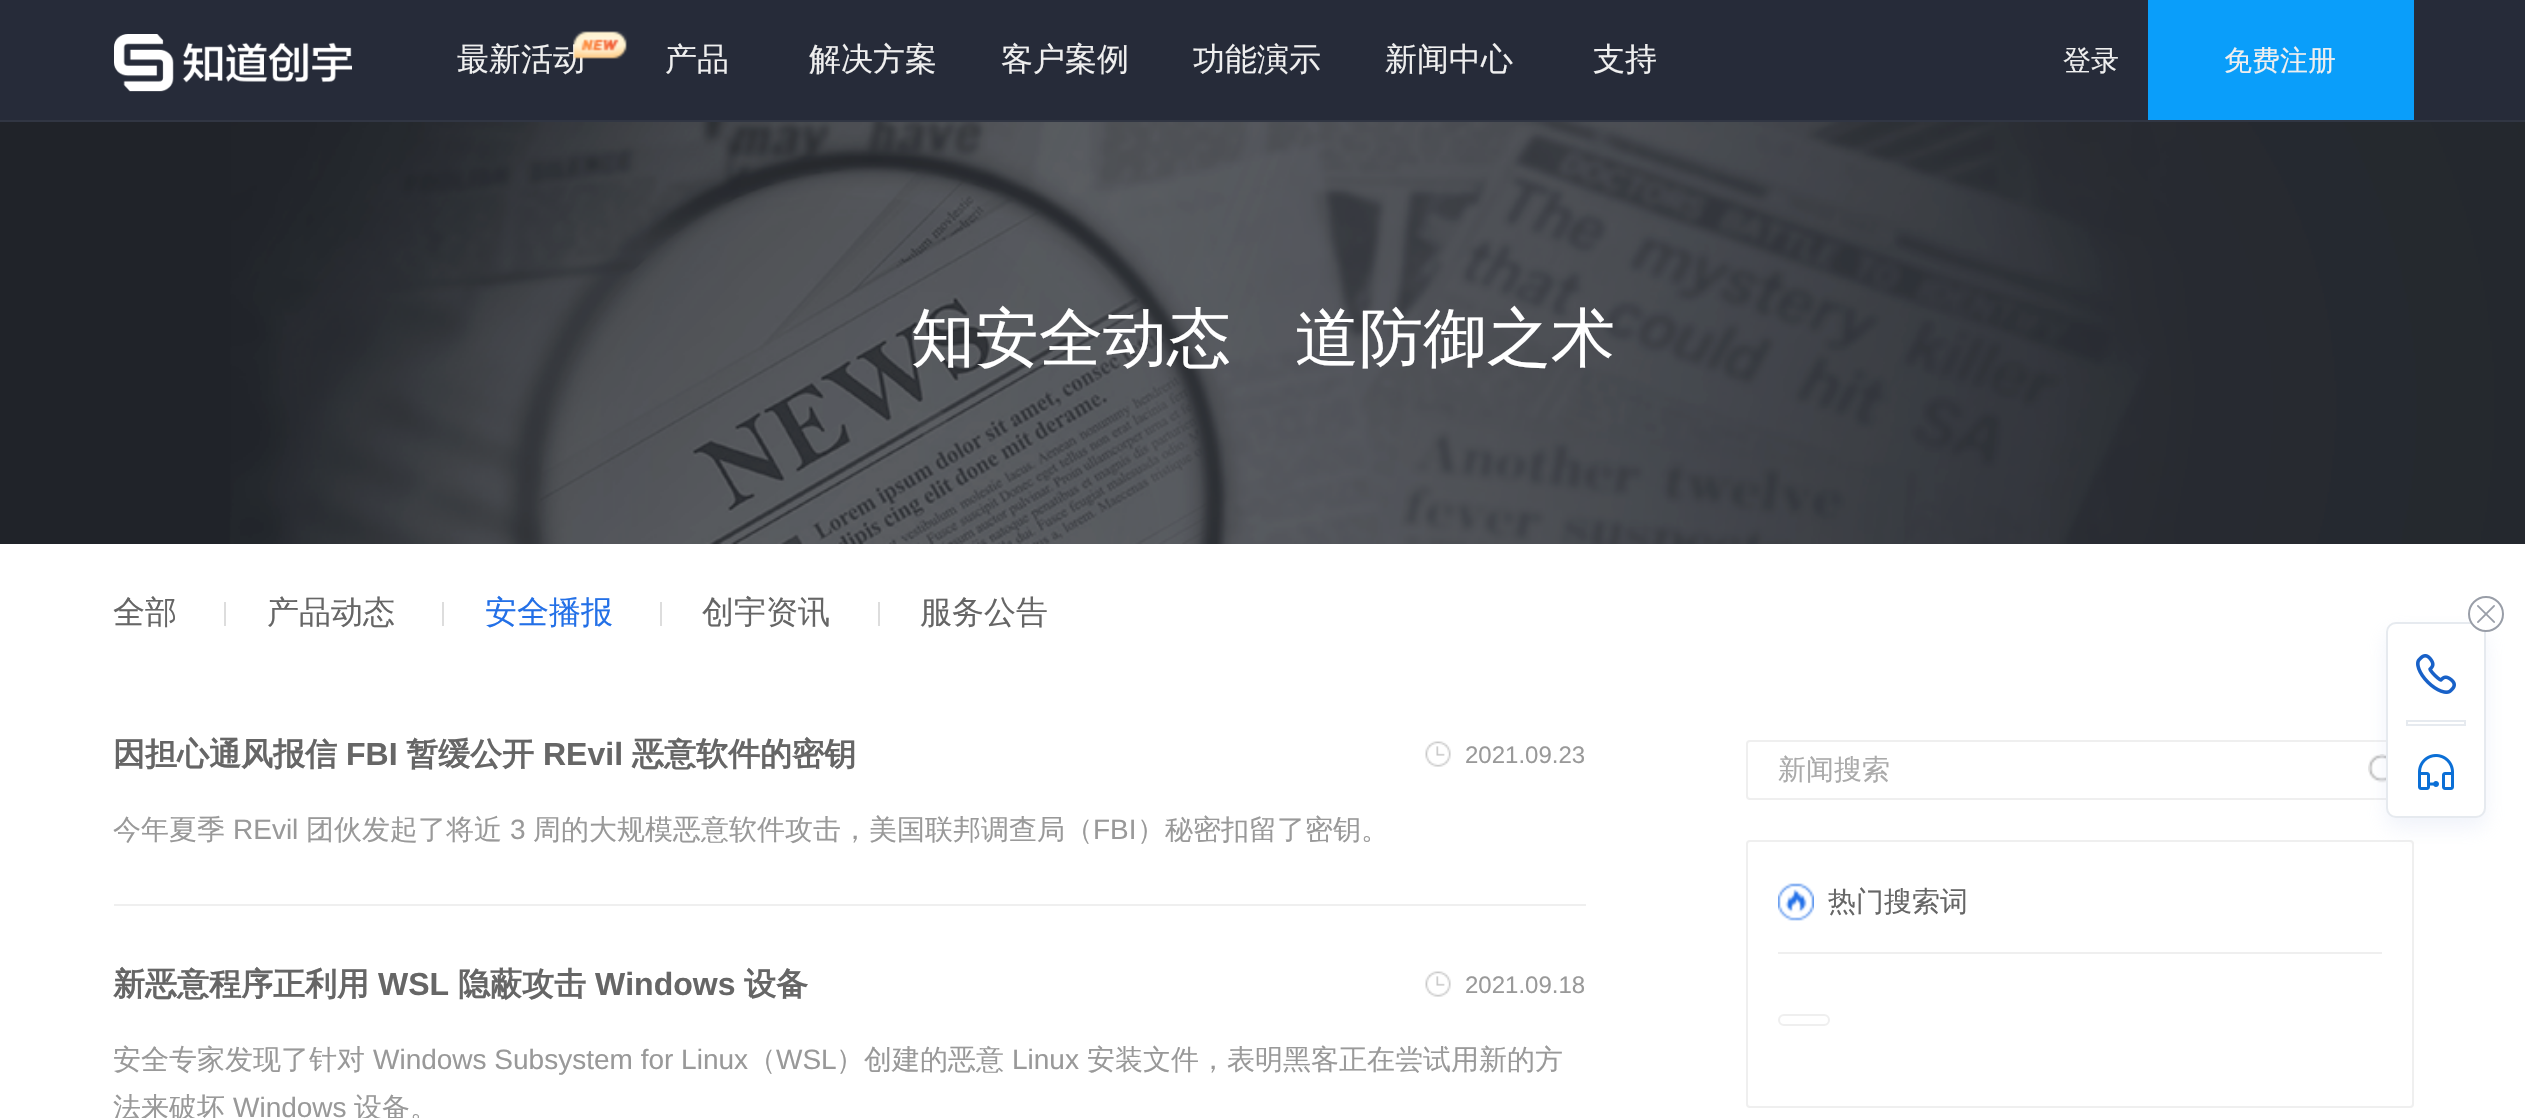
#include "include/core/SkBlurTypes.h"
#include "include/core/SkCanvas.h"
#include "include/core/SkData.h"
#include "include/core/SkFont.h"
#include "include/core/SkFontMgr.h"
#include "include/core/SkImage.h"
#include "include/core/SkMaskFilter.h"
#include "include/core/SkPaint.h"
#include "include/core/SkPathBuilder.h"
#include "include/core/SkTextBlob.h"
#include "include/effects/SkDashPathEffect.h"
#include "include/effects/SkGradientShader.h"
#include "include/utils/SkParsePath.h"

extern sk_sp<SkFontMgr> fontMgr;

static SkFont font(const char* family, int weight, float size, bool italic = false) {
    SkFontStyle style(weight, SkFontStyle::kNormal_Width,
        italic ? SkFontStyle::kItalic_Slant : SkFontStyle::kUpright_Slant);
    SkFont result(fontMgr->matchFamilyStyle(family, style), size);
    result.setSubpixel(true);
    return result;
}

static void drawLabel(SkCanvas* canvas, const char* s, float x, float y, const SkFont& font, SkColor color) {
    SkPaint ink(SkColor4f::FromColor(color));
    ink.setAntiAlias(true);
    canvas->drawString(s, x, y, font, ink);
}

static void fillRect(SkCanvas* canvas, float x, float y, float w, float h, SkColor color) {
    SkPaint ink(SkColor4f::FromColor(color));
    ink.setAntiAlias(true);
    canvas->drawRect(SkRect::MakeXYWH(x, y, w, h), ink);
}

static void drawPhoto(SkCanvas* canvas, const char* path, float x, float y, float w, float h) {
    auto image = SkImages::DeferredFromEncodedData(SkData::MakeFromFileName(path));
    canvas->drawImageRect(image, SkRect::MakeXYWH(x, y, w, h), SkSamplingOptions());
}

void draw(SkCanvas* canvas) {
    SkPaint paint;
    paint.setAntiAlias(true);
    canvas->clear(0xFFFFFFFF);
    fillRect(canvas, 0, 0, 2525, 120, 0xFF262B39);
    fillRect(canvas, 0, 120, 2525, 2, 0xFF313643);
    drawPhoto(canvas, "assets/img1.png", 114, 34, 238, 58);
    SkFont font1 = font("WenQuanYi Zen Hei", 500, 32);
    drawLabel(canvas, "最新活动", 457, 70, font1, 0xFFEFEFEF);
    drawPhoto(canvas, "assets/img2.png", 573, 31, 54, 28);
    drawLabel(canvas, "产品", 665, 70, font1, 0xFFEFEFEF);
    drawLabel(canvas, "解决方案", 809, 70, font1, 0xFFEFEFEF);
    drawLabel(canvas, "客户案例", 1001, 70, font1, 0xFFEFEFEF);
    drawLabel(canvas, "功能演示", 1193, 70, font1, 0xFFEFEFEF);
    drawLabel(canvas, "新闻中心", 1385, 70, font1, 0xFFEFEFEF);
    drawLabel(canvas, "支持", 1593, 70, font1, 0xFFEFEFEF);
    SkFont font2 = font("WenQuanYi Zen Hei", 500, 28);
    drawLabel(canvas, "登录", 2063, 70, font2, 0xFFEFEFEF);
    fillRect(canvas, 2148, 0, 266, 120, 0xFF0A9EFA);
    drawLabel(canvas, "免费注册", 2224, 70, font2, 0xFFEFEFEF);
    drawPhoto(canvas, "assets/img3.png", 0, 122, 2525, 422);
    SkFont font3 = font("WenQuanYi Zen Hei", 500, 64);
    drawLabel(canvas, "知安全动态　道防御之术", 911, 360, font3, 0xFFFFFFFF);
    drawLabel(canvas, "全部", 113, 623, font1, 0xFF666666);
    fillRect(canvas, 224, 602, 2, 24, 0xFFDDDDDD);
    drawLabel(canvas, "产品动态", 267, 623, font1, 0xFF666666);
    fillRect(canvas, 442, 602, 2, 24, 0xFFDDDDDD);
    drawLabel(canvas, "安全播报", 485, 623, font1, 0xFF2370E7);
    fillRect(canvas, 660, 602, 2, 24, 0xFFDDDDDD);
    drawLabel(canvas, "创宇资讯", 702, 623, font1, 0xFF666666);
    fillRect(canvas, 878, 602, 2, 24, 0xFFDDDDDD);
    drawLabel(canvas, "服务公告", 920, 623, font1, 0xFF666666);
    fillRect(canvas, 114, 904, 1472, 2, 0xFFEFEFEF);
    SkFont font4 = font("WenQuanYi Zen Hei", 700, 32);
    drawLabel(canvas, "因担心通风报信", 113, 765, font4, 0xFF666666);
    SkFont font5 = font("Liberation Sans", 700, 32);
    drawLabel(canvas, "FBI", 346, 765, font5, 0xFF666666);
    drawLabel(canvas, "暂缓公开", 406, 765, font4, 0xFF666666);
    drawLabel(canvas, "REvil", 543, 765, font5, 0xFF666666);
    drawLabel(canvas, "恶意软件的密钥", 632, 765, font4, 0xFF666666);
    drawPhoto(canvas, "assets/img4.png", 1425, 741, 26, 26);
    SkFont font6 = font("Liberation Sans", 400, 24);
    drawLabel(canvas, "2021.09.23", 1465, 763, font6, 0xFF999999);
    drawLabel(canvas, "今年夏季", 113, 839, font2, 0xFF999999);
    SkFont font7 = font("Liberation Sans", 400, 28);
    drawLabel(canvas, "REvil", 233, 839, font7, 0xFF999999);
    drawLabel(canvas, "团伙发起了将近", 306, 839, font2, 0xFF999999);
    drawLabel(canvas, "3", 510, 839, font7, 0xFF999999);
    drawLabel(canvas, "周的大规模恶意软件攻击，美国联邦调查局（", 533, 839, font2, 0xFF999999);
    drawLabel(canvas, "FBI", 1093, 839, font7, 0xFF999999);
    drawLabel(canvas, "）秘密扣留了密钥。", 1137, 839, font2, 0xFF999999);
    drawLabel(canvas, "新恶意程序正利用", 113, 995, font4, 0xFF666666);
    drawLabel(canvas, "WSL", 378, 995, font5, 0xFF666666);
    drawLabel(canvas, "隐蔽攻击", 458, 995, font4, 0xFF666666);
    drawLabel(canvas, "Windows", 595, 995, font5, 0xFF666666);
    drawLabel(canvas, "设备", 744, 995, font4, 0xFF666666);
    drawPhoto(canvas, "assets/img5.png", 1425, 971, 26, 26);
    drawLabel(canvas, "2021.09.18", 1465, 993, font6, 0xFF999999);
    drawLabel(canvas, "安全专家发现了针对", 113, 1069, font2, 0xFF999999);
    drawLabel(canvas, "Windows Subsystem for Linux", 373, 1069, font7, 0xFF999999);
    drawLabel(canvas, "（", 748, 1069, font2, 0xFF999999);
    drawLabel(canvas, "WSL", 776, 1069, font7, 0xFF999999);
    drawLabel(canvas, "）创建的恶意", 836, 1069, font2, 0xFF999999);
    drawLabel(canvas, "Linux", 1012, 1069, font7, 0xFF999999);
    drawLabel(canvas, "安装文件，表明黑客正在尝试用新的方", 1087, 1069, font2, 0xFF999999);
    drawLabel(canvas, "法来破坏", 113, 1117, font2, 0xFF999999);
    drawLabel(canvas, "Windows", 233, 1117, font7, 0xFF999999);
    drawLabel(canvas, "设备。", 354, 1117, font2, 0xFF999999);
    paint.setStroke(true);
    paint.setStrokeWidth(2);
    paint.setColor(0xFFEFEFEF);
    canvas->drawRoundRect(SkRect::MakeXYWH(1747, 741, 666, 58), 3, 3, paint);
    drawLabel(canvas, "新闻搜索", 1778, 779, font2, 0xFFAAAAAA);
    drawPhoto(canvas, "assets/img6.png", 2368, 754, 18, 29);
    canvas->drawRoundRect(SkRect::MakeXYWH(1747, 841, 666, 266), 3, 3, paint);
    drawPhoto(canvas, "assets/img7.png", 1778, 883, 36, 38);
    fillRect(canvas, 1778, 952, 604, 2, 0xFFEFEFEF);
    drawLabel(canvas, "热门搜索词", 1828, 911, font2, 0xFF666666);
    canvas->drawRoundRect(SkRect::MakeXYWH(1779, 1015, 50, 10), 5, 5, paint);
    paint.setStroke(false);
    paint.setColor(0x40C4D1EC);
    paint.setMaskFilter(SkMaskFilter::MakeBlur(kNormal_SkBlurStyle, 10));
    canvas->drawRoundRect(SkRect::MakeXYWH(2386, 632, 100, 196), 10, 10, paint);
    paint.setMaskFilter(nullptr);
    paint.setColor(0xFFFFFFFF);
    canvas->drawRoundRect(SkRect::MakeXYWH(2387, 623, 98, 194), 9, 9, paint);
    paint.setStroke(true);
    paint.setColor(0xFFE6EAEF);
    canvas->drawRoundRect(SkRect::MakeXYWH(2387, 623, 98, 194), 9, 9, paint);
    paint.setStroke(false);
    paint.setColor(0xFFFFFFFF);
    canvas->drawCircle(2486, 614, 17, paint);
    paint.setStroke(true);
    paint.setColor(0xFF999EA8);
    canvas->drawCircle(2486, 614, 17, paint);
    drawPhoto(canvas, "assets/img8.png", 2477, 605, 18, 18);
    drawPhoto(canvas, "assets/img9.png", 2416, 654, 40, 40);
    paint.setColor(0xFFE6EAEF);
    canvas->drawRect(SkRect::MakeXYWH(2407, 721, 58, 4), paint);
    drawPhoto(canvas, "assets/img10.png", 2418, 754, 36, 36);
}
